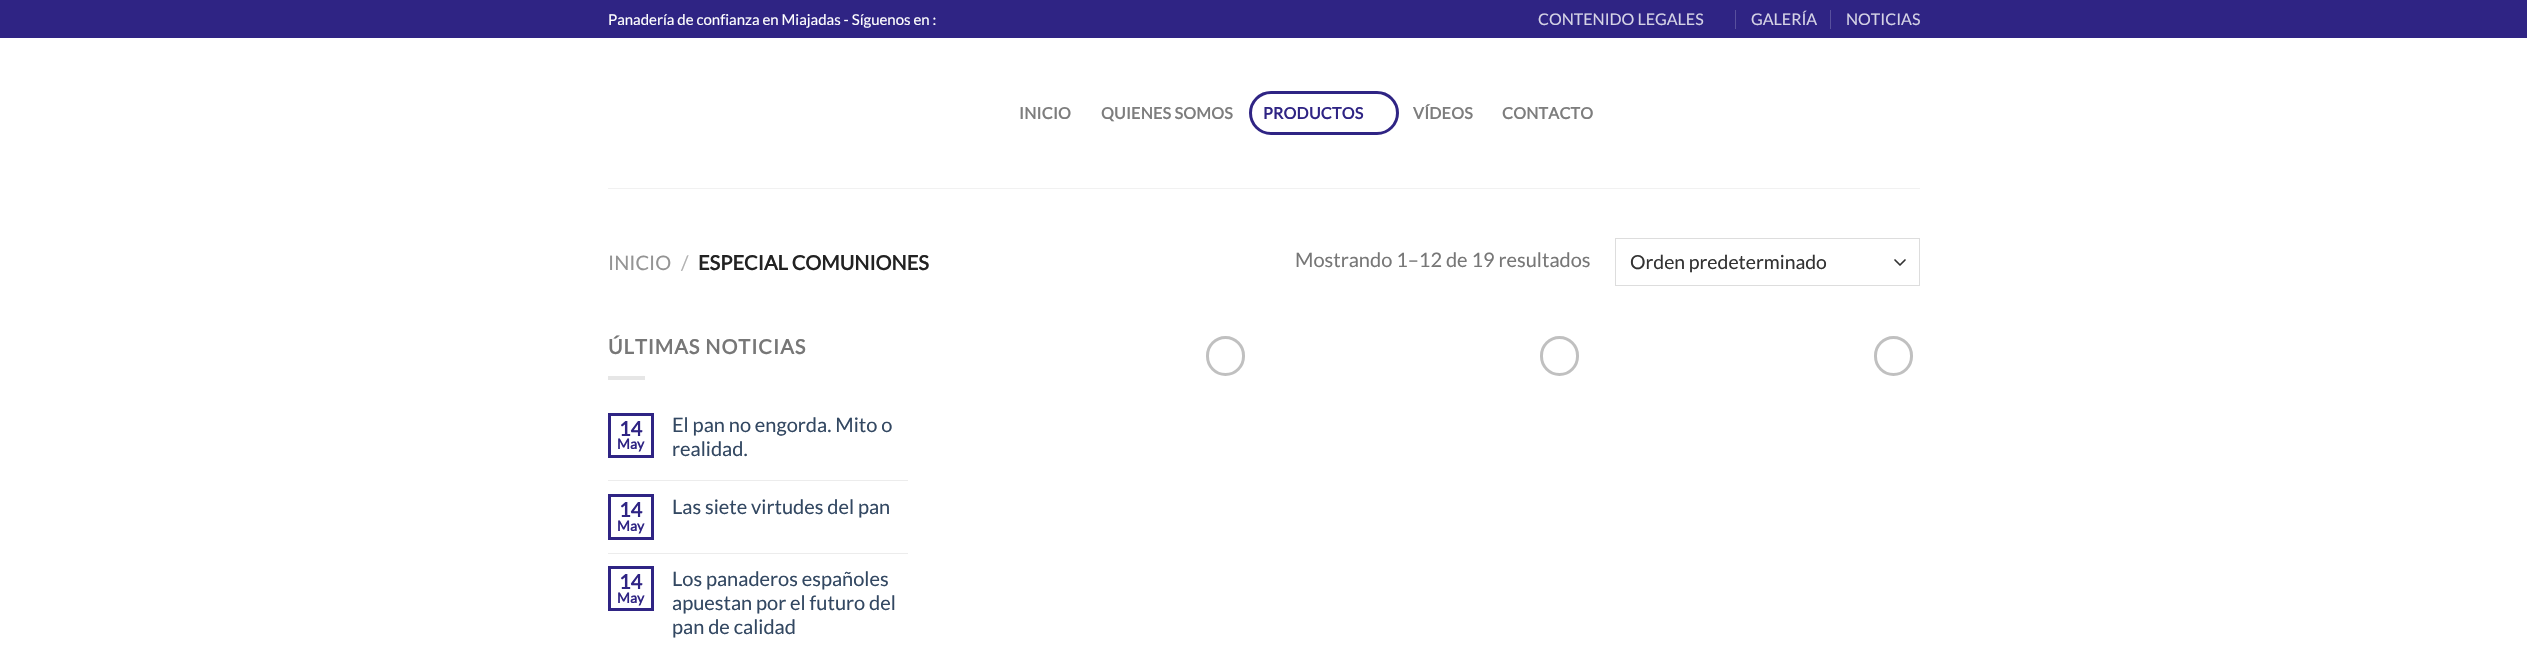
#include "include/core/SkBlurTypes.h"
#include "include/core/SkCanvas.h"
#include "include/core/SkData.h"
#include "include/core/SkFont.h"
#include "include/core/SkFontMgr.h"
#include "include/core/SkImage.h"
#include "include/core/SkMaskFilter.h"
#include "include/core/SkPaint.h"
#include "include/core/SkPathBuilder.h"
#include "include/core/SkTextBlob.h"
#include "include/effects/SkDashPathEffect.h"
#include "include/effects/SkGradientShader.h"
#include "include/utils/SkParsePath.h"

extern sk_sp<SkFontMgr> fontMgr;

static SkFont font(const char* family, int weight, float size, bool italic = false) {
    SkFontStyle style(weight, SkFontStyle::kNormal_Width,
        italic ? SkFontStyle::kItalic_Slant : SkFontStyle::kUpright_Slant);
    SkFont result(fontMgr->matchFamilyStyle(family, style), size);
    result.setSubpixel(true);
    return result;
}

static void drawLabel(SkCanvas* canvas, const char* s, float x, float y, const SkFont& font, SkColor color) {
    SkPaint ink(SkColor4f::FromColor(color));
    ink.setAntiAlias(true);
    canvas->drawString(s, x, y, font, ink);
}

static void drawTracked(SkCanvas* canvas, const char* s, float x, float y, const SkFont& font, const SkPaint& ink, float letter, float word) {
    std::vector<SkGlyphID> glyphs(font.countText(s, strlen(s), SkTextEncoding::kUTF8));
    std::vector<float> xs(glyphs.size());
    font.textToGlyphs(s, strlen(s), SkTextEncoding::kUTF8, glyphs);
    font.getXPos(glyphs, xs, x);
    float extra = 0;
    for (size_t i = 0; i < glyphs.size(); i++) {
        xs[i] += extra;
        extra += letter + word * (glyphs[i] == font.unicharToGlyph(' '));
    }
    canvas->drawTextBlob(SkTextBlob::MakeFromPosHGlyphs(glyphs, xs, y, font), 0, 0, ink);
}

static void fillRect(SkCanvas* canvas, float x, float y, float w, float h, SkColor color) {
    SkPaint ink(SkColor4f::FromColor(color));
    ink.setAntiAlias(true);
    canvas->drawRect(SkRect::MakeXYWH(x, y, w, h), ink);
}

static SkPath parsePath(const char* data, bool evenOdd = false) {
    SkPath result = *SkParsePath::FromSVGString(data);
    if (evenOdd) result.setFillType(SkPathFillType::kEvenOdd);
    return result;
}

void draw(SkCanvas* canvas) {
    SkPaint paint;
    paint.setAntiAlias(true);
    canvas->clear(0xFFFFFFFF);
    fillRect(canvas, 0, 0, 2527, 38, 0xFF2F2484);
    SkFont font1 = font("Lato", 400, 15);
    drawLabel(canvas, "Panadería de confianza en Miajadas - Síguenos en :", 608, 25, font1, 0xFFFFFFFF);
    SkFont font2 = font("Lato", 400, 16);
    drawLabel(canvas, "CONTENIDO LEGALES", 1538, 25, font2, 0xFFD5D3E6);
    fillRect(canvas, 1735, 10, 1, 19, 0xFF59509D);
    drawLabel(canvas, "GALERÍA", 1751, 25, font2, 0xFFD5D3E6);
    fillRect(canvas, 1830, 10, 1, 19, 0xFF59509D);
    drawLabel(canvas, "NOTICIAS", 1846, 25, font2, 0xFFD5D3E6);
    SkFont font3 = font("Lato", 700, 16);
    paint.setColor(0xFF7D7D7D);
    drawTracked(canvas, "INICIO", 1019, 119, font3, paint, 0.25f, 0);
    drawTracked(canvas, "QUIENES SOMOS", 1101, 119, font3, paint, 0.25f, 0);
    paint.setStroke(true);
    paint.setStrokeWidth(3);
    paint.setColor(0xFF2F2484);
    canvas->drawRoundRect(SkRect::MakeXYWH(1250.5f, 92.5f, 147, 41), 20.5f, 20.5f, paint);
    paint.setStroke(false);
    drawTracked(canvas, "PRODUCTOS", 1263, 119, font3, paint, 0.25f, 0);
    paint.setColor(0xFF7D7D7D);
    drawTracked(canvas, "VÍDEOS", 1413, 119, font3, paint, 0.25f, 0);
    drawTracked(canvas, "CONTACTO", 1502, 119, font3, paint, 0.25f, 0);
    fillRect(canvas, 608, 188, 1312, 1, 0xFFF1F1F1);
    SkFont font4 = font("Lato", 400, 20);
    drawLabel(canvas, "INICIO", 608, 270, font4, 0xFF949494);
    drawLabel(canvas, "/", 681, 270, font4, 0xFFB2B2B2);
    SkFont font5 = font("Lato", 700, 20);
    drawLabel(canvas, "ESPECIAL COMUNIONES", 698, 270, font5, 0xFF222222);
    drawLabel(canvas, "Mostrando 1–12 de 19 resultados", 1295, 267, font4, 0xFF777777);
    paint.setStroke(true);
    paint.setStrokeWidth(1.7f);
    paint.setStrokeCap(SkPaint::kRound_Cap);
    paint.setStrokeJoin(SkPaint::kRound_Join);
    paint.setColor(0xFF333333);
    canvas->drawPath(parsePath("M1895 260L1900 265L1905 260"), paint);
    paint.setStrokeWidth(1);
    paint.setStrokeCap(SkPaint::kButt_Cap);
    paint.setStrokeJoin(SkPaint::kMiter_Join);
    paint.setColor(0xFFDDDDDD);
    canvas->drawRect(SkRect::MakeXYWH(1615.5f, 238.5f, 304, 47), paint);
    SkFont font6 = font("Lato", 400, 19.4f);
    drawLabel(canvas, "Orden predeterminado", 1630, 269, font6, 0xFF333333);
    paint.setStroke(false);
    paint.setColor(0xFF777777);
    drawTracked(canvas, "ÚLTIMAS NOTICIAS", 608, 354, font5, paint, 1, 0);
    fillRect(canvas, 608, 376, 37, 4, 0xFFE6E6E6);
    paint.setStroke(true);
    paint.setStrokeWidth(3);
    paint.setColor(0xFF2F2484);
    canvas->drawRect(SkRect::MakeXYWH(609.5f, 414.5f, 43, 42), paint);
    drawLabel(canvas, "14", 619, 436, font5, 0xFF2F2484);
    SkFont font7 = font("Lato", 700, 14);
    drawLabel(canvas, "May", 617, 449, font7, 0xFF2F2484);
    drawLabel(canvas, "El pan no engorda. Mito o", 672, 432, font4, 0xFF334862);
    drawLabel(canvas, "realidad.", 672, 456, font4, 0xFF334862);
    fillRect(canvas, 608, 480, 300, 1, 0xFFECECEC);
    canvas->drawRect(SkRect::MakeXYWH(609.5f, 495.5f, 43, 43), paint);
    drawLabel(canvas, "14", 619, 517, font5, 0xFF2F2484);
    drawLabel(canvas, "May", 617, 531, font7, 0xFF2F2484);
    drawLabel(canvas, "Las siete virtudes del pan", 672, 514, font4, 0xFF334862);
    fillRect(canvas, 608, 553, 300, 1, 0xFFECECEC);
    canvas->drawRect(SkRect::MakeXYWH(609.5f, 567.5f, 43, 42), paint);
    drawLabel(canvas, "14", 619, 589, font5, 0xFF2F2484);
    drawLabel(canvas, "May", 617, 603, font7, 0xFF2F2484);
    drawLabel(canvas, "Los panaderos españoles", 672, 586, font4, 0xFF334862);
    drawLabel(canvas, "apuestan por el futuro del", 672, 610, font4, 0xFF334862);
    drawLabel(canvas, "pan de calidad", 672, 634, font4, 0xFF334862);
    paint.setColor(0xFFC0C0C0);
    canvas->drawRoundRect(SkRect::MakeXYWH(1207.5f, 337.5f, 36, 37), 18, 18, paint);
    canvas->drawRoundRect(SkRect::MakeXYWH(1541.5f, 337.5f, 36, 37), 18, 18, paint);
    canvas->drawRoundRect(SkRect::MakeXYWH(1875.5f, 337.5f, 36, 37), 18, 18, paint);
}
